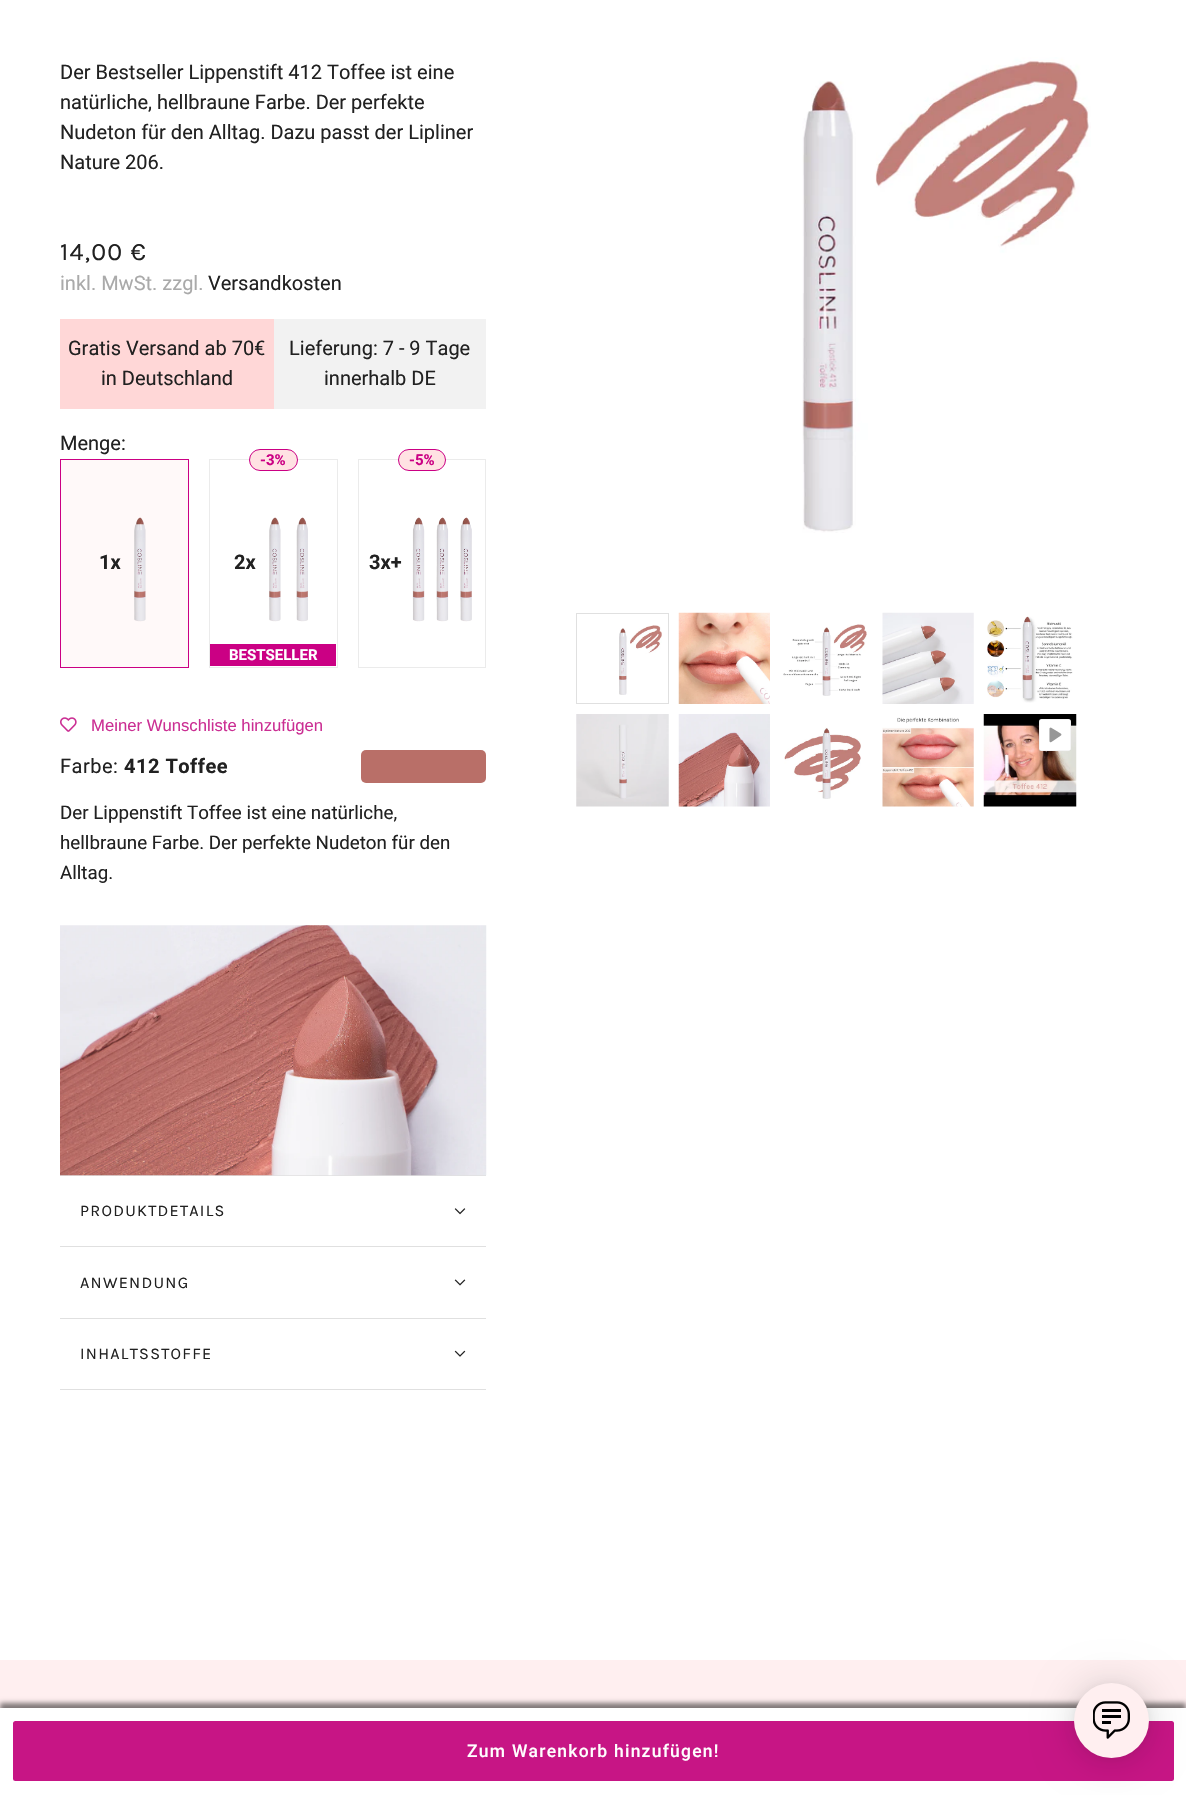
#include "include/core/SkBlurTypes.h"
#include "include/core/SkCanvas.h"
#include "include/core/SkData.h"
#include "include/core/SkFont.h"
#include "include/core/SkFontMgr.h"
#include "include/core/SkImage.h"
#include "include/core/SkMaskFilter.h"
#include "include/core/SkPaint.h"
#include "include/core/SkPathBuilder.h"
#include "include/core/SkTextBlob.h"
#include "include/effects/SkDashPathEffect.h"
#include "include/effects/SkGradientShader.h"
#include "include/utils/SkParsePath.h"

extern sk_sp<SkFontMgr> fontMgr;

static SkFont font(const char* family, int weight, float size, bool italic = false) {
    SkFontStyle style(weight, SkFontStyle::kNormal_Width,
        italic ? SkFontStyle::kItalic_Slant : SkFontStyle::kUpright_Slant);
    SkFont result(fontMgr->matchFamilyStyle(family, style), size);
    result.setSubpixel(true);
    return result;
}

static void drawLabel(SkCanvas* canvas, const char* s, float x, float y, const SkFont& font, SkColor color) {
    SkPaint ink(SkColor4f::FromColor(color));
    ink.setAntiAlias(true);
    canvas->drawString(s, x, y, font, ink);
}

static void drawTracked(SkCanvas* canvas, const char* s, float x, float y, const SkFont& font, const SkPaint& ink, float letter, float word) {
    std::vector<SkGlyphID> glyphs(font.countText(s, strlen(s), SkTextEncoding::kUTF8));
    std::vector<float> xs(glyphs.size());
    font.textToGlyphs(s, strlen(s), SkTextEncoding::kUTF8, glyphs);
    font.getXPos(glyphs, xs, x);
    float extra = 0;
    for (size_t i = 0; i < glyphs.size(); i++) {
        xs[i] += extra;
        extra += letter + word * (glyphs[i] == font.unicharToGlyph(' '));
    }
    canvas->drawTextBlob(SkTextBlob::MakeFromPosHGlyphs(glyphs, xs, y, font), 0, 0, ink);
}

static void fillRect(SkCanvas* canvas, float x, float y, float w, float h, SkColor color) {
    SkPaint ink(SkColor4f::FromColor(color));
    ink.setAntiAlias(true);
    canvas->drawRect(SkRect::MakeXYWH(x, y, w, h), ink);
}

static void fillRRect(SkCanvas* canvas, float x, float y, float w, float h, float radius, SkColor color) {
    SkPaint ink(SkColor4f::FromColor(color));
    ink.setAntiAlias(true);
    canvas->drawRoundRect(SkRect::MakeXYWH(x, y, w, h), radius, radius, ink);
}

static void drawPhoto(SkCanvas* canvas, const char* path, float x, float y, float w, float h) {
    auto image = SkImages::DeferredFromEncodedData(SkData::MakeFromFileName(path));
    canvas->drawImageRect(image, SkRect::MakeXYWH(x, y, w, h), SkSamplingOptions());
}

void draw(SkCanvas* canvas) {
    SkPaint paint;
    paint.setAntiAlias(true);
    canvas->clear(0xFFFFFFFF);
    SkFont font1 = font("Roboto", 400, 20);
    drawLabel(canvas, "Der Bestseller Lippenstift 412 Toffee ist eine", 60, 79, font1, 0xFF212121);
    drawLabel(canvas, "natürliche, hellbraune Farbe. Der perfekte", 60, 109, font1, 0xFF212121);
    drawLabel(canvas, "Nudeton für den Alltag. Dazu passt der Lipliner", 60, 139, font1, 0xFF212121);
    drawLabel(canvas, "Nature 206.", 60, 169, font1, 0xFF212121);
    drawPhoto(canvas, "assets/img1.png", 802, 57, 289, 476);
    paint.setStroke(true);
    paint.setStrokeWidth(1);
    paint.setColor(0xFFE0E0E0);
    canvas->drawRect(SkRect::MakeXYWH(576.5f, 613.5f, 92, 90), paint);
    drawPhoto(canvas, "assets/img2.png", 619, 625, 43, 70);
    drawPhoto(canvas, "assets/img3.png", 678, 612, 92, 92);
    drawPhoto(canvas, "assets/img4.png", 783, 624, 84, 72);
    drawPhoto(canvas, "assets/img5.png", 882, 612, 92, 92);
    drawPhoto(canvas, "assets/img6.png", 987, 616, 86, 87);
    drawPhoto(canvas, "assets/img7.png", 576, 714, 93, 93);
    drawPhoto(canvas, "assets/img8.png", 678, 714, 92, 93);
    drawPhoto(canvas, "assets/img9.png", 784, 727, 77, 72);
    drawPhoto(canvas, "assets/img10.png", 882, 717, 92, 90);
    drawPhoto(canvas, "assets/img11.png", 983, 714, 94, 93);
    fillRRect(canvas, 1039, 719, 32, 32, 2.5f, 0xFFFFFFFF);
    paint.setColor(0x0D212121);
    canvas->drawRect(SkRect::MakeXYWH(1039.5f, 719.5f, 31, 31), paint);
    drawPhoto(canvas, "assets/img12.png", 1049, 727, 13, 16);
    SkFont font2 = font("Karla", 400, 25);
    paint.setStroke(false);
    paint.setColor(0xFF212121);
    drawTracked(canvas, "14,00 €", 60, 260, font2, paint, 1.25f, 0);
    drawLabel(canvas, "inkl. MwSt. zzgl.", 60, 290, font1, 0xFFAAAAAA);
    drawLabel(canvas, "Versandkosten", 208, 290, font1, 0xFF212121);
    fillRect(canvas, 60, 319, 214, 90, 0xFFFFD7D7);
    drawLabel(canvas, "Gratis Versand ab 70€", 68, 355, font1, 0xFF212121);
    drawLabel(canvas, "in Deutschland", 101, 385, font1, 0xFF212121);
    fillRect(canvas, 274, 319, 212, 90, 0xFFF2F2F2);
    drawLabel(canvas, "Lieferung: 7 - 9 Tage", 289, 355, font1, 0xFF212121);
    drawLabel(canvas, "innerhalb DE", 324, 385, font1, 0xFF212121);
    drawLabel(canvas, "Menge:", 60, 450, font1, 0xFF212121);
    paint.setColor(0xFFFFF9F9);
    canvas->drawRect(SkRect::MakeXYWH(60.5f, 459.5f, 128, 208), paint);
    paint.setStroke(true);
    paint.setColor(0xFFCB0084);
    canvas->drawRect(SkRect::MakeXYWH(60.5f, 459.5f, 128, 208), paint);
    SkFont font3 = font("Roboto", 700, 20);
    drawLabel(canvas, "1x", 99, 569, font3, 0xFF212121);
    drawPhoto(canvas, "assets/img13.png", 134, 517, 12, 105);
    paint.setColor(0xFFEBEBEB);
    canvas->drawRect(SkRect::MakeXYWH(209.5f, 459.5f, 128, 208), paint);
    paint.setStroke(false);
    paint.setColor(0xFFFFE2E3);
    canvas->drawRoundRect(SkRect::MakeXYWH(249.5f, 449.5f, 48, 21), 10.5f, 10.5f, paint);
    paint.setStroke(true);
    paint.setColor(0xFFCB0084);
    canvas->drawRoundRect(SkRect::MakeXYWH(249.5f, 449.5f, 48, 21), 10.5f, 10.5f, paint);
    SkFont font4 = font("Roboto", 700, 15);
    drawLabel(canvas, "-3%", 260, 465, font4, 0xFFCB0084);
    drawLabel(canvas, "2x", 234, 569, font3, 0xFF212121);
    drawPhoto(canvas, "assets/img14.png", 269, 517, 12, 105);
    drawPhoto(canvas, "assets/img15.png", 296, 517, 12, 105);
    fillRect(canvas, 210, 644, 126, 22, 0xFFCB0084);
    drawLabel(canvas, "BESTSELLER", 229, 660, font4, 0xFFFFFFFF);
    paint.setColor(0xFFEBEBEB);
    canvas->drawRect(SkRect::MakeXYWH(358.5f, 459.5f, 127, 208), paint);
    paint.setStroke(false);
    paint.setColor(0xFFFFE2E3);
    canvas->drawRoundRect(SkRect::MakeXYWH(398.5f, 449.5f, 47, 21), 10.5f, 10.5f, paint);
    paint.setStroke(true);
    paint.setColor(0xFFCB0084);
    canvas->drawRoundRect(SkRect::MakeXYWH(398.5f, 449.5f, 47, 21), 10.5f, 10.5f, paint);
    drawLabel(canvas, "-5%", 409, 465, font4, 0xFFCB0084);
    drawLabel(canvas, "3x+", 369, 569, font3, 0xFF212121);
    drawPhoto(canvas, "assets/img16.png", 412, 517, 13, 105);
    drawPhoto(canvas, "assets/img17.png", 436, 517, 13, 105);
    drawPhoto(canvas, "assets/img18.png", 460, 517, 12, 105);
    fillRect(canvas, 0, 1660, 1186, 48, 0xFFFFEFF0);
    paint.setStroke(false);
    paint.setColor(0x80000000);
    paint.setMaskFilter(SkMaskFilter::MakeBlur(kNormal_SkBlurStyle, 2.5f));
    canvas->drawRect(SkRect::MakeXYWH(0, 1703, 1186, 87), paint);
    paint.setMaskFilter(nullptr);
    fillRect(canvas, 0, 1708, 1186, 87, 0xFFFFFFFF);
    fillRRect(canvas, 13, 1721, 1161, 60, 2.5f, 0xFFC71585);
    SkFont font5 = font("Roboto", 500, 17.5f);
    paint.setColor(0xFFFFFFFF);
    drawTracked(canvas, "Zum Warenkorb hinzufügen!", 467, 1757, font5, paint, 1.25f, 0);
    drawPhoto(canvas, "assets/img19.png", 60, 717, 17, 15);
    SkFont font6 = font("Liberation Sans", 400, 16.7f);
    drawLabel(canvas, "Meiner Wunschliste hinzufügen", 91, 731, font6, 0xFFCB2E93);
    paint.setColor(0xFF212121);
    drawTracked(canvas, "Farbe:", 60, 773, font1, paint, 0.5f, 0);
    drawTracked(canvas, "412 Toffee", 124, 773, font3, paint, 0.5f, 0);
    fillRRect(canvas, 361, 750, 125, 33, 5, 0xFFB96F68);
    SkFont font7 = font("Roboto", 400, 18.75f);
    drawLabel(canvas, "Der Lippenstift Toffee ist eine natürliche,", 60, 819, font7, 0xFF212121);
    drawLabel(canvas, "hellbraune Farbe. Der perfekte Nudeton für den", 60, 849, font7, 0xFF212121);
    drawLabel(canvas, "Alltag.", 60, 879, font7, 0xFF212121);
    fillRect(canvas, 60, 1175, 426, 1, 0xFFE0E0E0);
    drawPhoto(canvas, "assets/img20.png", 60, 925, 427, 251);
    fillRect(canvas, 60, 1246, 426, 1, 0xFFE0E0E0);
    SkFont font8 = font("Karla", 400, 16.25f);
    drawTracked(canvas, "PRODUKTDETAILS", 80, 1216, font8, paint, 1.25f, 0);
    drawPhoto(canvas, "assets/img21.png", 454, 1208, 12, 7);
    fillRect(canvas, 60, 1318, 426, 1, 0xFFE0E0E0);
    drawTracked(canvas, "ANWENDUNG", 80, 1288, font8, paint, 1.25f, 0);
    drawPhoto(canvas, "assets/img22.png", 454, 1279, 12, 7);
    fillRect(canvas, 60, 1389, 426, 1, 0xFFE0E0E0);
    drawTracked(canvas, "INHALTSSTOFFE", 80, 1359, font8, paint, 1.25f, 0);
    drawPhoto(canvas, "assets/img23.png", 454, 1350, 12, 7);
    paint.setColor(0x29000000);
    paint.setMaskFilter(SkMaskFilter::MakeBlur(kNormal_SkBlurStyle, 20));
    canvas->drawRoundRect(SkRect::MakeXYWH(1074, 1685, 75, 75), 37.5f, 37.5f, paint);
    paint.setMaskFilter(nullptr);
    paint.setColor(0x0F000000);
    paint.setMaskFilter(SkMaskFilter::MakeBlur(kNormal_SkBlurStyle, 4));
    canvas->drawRoundRect(SkRect::MakeXYWH(1074, 1684, 75, 75), 37.5f, 37.5f, paint);
    paint.setMaskFilter(nullptr);
    paint.setColor(0xFFFFEFF0);
    canvas->drawCircle(1111.5f, 1720.5f, 37.5f, paint);
    drawPhoto(canvas, "assets/img24.png", 1093, 1701, 37, 38);
}
